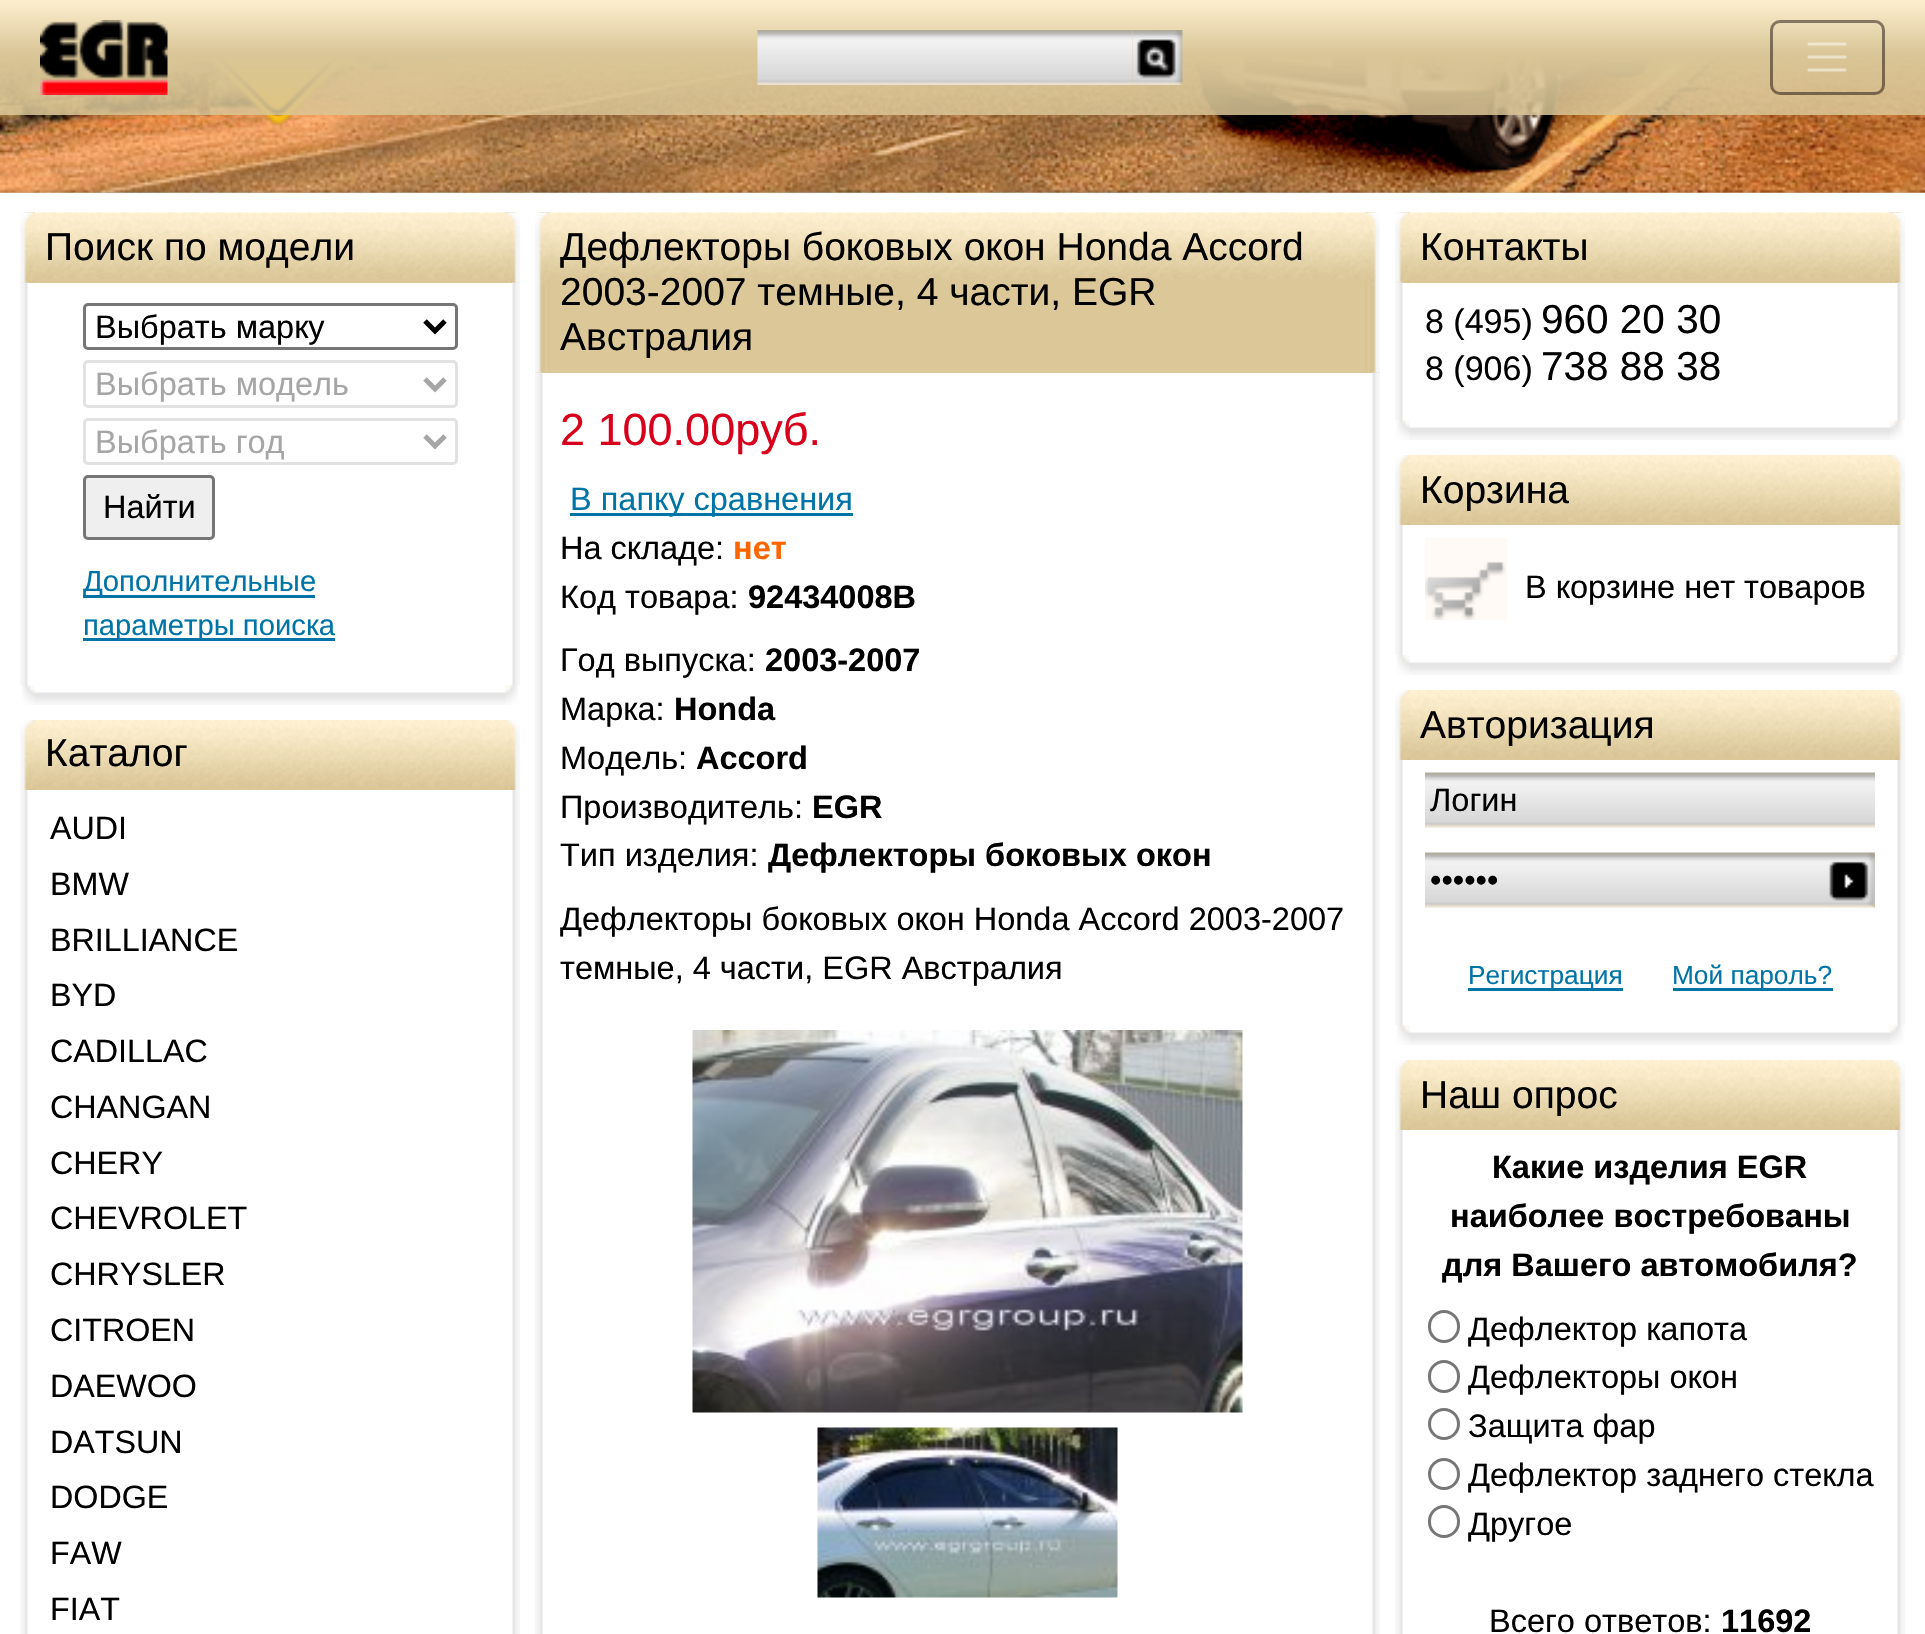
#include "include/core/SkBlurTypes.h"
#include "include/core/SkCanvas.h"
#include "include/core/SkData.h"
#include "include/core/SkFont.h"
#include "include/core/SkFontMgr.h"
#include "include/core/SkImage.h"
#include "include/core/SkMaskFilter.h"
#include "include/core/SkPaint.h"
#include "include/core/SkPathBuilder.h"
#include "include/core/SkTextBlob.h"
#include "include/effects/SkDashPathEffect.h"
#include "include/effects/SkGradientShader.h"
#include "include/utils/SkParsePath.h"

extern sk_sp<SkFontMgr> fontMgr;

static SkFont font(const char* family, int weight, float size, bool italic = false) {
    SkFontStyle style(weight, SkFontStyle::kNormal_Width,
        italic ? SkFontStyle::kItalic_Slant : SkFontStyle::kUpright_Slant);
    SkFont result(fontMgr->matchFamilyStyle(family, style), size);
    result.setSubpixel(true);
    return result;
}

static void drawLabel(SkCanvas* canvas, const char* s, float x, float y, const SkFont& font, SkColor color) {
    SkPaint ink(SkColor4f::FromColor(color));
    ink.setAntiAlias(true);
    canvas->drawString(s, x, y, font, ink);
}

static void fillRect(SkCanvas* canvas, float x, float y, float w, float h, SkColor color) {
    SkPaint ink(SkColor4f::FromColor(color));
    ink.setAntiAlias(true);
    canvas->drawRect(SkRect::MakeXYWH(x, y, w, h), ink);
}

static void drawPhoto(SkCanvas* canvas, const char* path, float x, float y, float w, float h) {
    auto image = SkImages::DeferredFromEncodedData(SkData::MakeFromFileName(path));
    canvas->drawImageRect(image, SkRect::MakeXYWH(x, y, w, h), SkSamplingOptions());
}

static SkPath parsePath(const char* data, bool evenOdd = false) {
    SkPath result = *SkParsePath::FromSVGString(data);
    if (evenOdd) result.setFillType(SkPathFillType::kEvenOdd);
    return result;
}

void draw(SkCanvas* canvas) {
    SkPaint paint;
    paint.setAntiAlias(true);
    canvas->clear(0xFFFFFFFF);
    drawPhoto(canvas, "assets/img4.png", 0, 192, 1925, 1);
    drawPhoto(canvas, "assets/img5.png", 0, 56, 1925, 137);
    drawPhoto(canvas, "assets/img6.png", 203, 56, 150, 70);
    {
        const SkColor colors[] = {0xFFFDEFCF, 0xFFD9C596, 0xD9D9C596};
        const float stops[] = {0, 0.47f, 0.95f};
        const SkPoint ends[] = {{963, 0}, {963, 115}};
        paint.setShader(SkGradientShader::MakeLinear(ends, colors, stops, 3, SkTileMode::kClamp));
        paint.setAlpha(255);
    }
    canvas->drawRect(SkRect::MakeXYWH(0, 0, 1925, 115), paint);
    drawPhoto(canvas, "assets/img1.png", 40, 20, 128, 75);
    drawPhoto(canvas, "assets/img2.png", 757, 30, 376, 55);
    drawPhoto(canvas, "assets/img3.png", 1132, 30, 51, 55);
    paint.setStroke(true);
    paint.setStrokeWidth(3);
    paint.setShader(nullptr);
    paint.setColor(0x780C0000);
    canvas->drawRoundRect(SkRect::MakeXYWH(1771.5f, 21.5f, 112, 72), 8.5f, 8.5f, paint);
    paint.setStrokeWidth(3.2f);
    paint.setStrokeCap(SkPaint::kRound_Cap);
    paint.setColor(0x80FFFFFF);
    canvas->drawPath(parsePath("M1809 44H1845M1809 57H1845M1809 70H1845"), paint);
    fillRect(canvas, 20, 279, 500, 4, 0xFFDBC798);
    drawPhoto(canvas, "assets/img7.png", 20, 212, 500, 67);
    drawPhoto(canvas, "assets/img8.png", 20, 212, 15, 71);
    drawPhoto(canvas, "assets/img9.png", 505, 212, 15, 71);
    drawPhoto(canvas, "assets/img10.png", 20, 212, 15, 71);
    drawPhoto(canvas, "assets/img11.png", 505, 212, 15, 71);
    SkFont font1 = font("Liberation Sans", 400, 39);
    drawLabel(canvas, "Поиск по модели", 45, 260, font1, 0xFF000000);
    drawPhoto(canvas, "assets/img12.png", 512, 282, 8, 403);
    drawPhoto(canvas, "assets/img13.png", 20, 282, 8, 403);
    drawPhoto(canvas, "assets/img14.png", 35, 692, 470, 13);
    drawPhoto(canvas, "assets/img15.png", 505, 685, 15, 20);
    drawPhoto(canvas, "assets/img16.png", 20, 685, 15, 20);
    paint.setStrokeWidth(3);
    paint.setStrokeCap(SkPaint::kButt_Cap);
    paint.setColor(0xFF767676);
    canvas->drawRoundRect(SkRect::MakeXYWH(84.5f, 304.5f, 372, 44), 3.5f, 3.5f, paint);
    paint.setStrokeWidth(5);
    paint.setColor(0xFF000000);
    canvas->drawPath(parsePath("M425 321L435 331L445 321"), paint);
    SkFont font2 = font("Liberation Sans", 400, 32.5f);
    drawLabel(canvas, "Выбрать марку", 95, 338, font2, 0xFF000000);
    paint.setStrokeWidth(3);
    paint.setColor(0xFFE2E2E2);
    canvas->drawRoundRect(SkRect::MakeXYWH(84.5f, 361.5f, 372, 45), 3.5f, 3.5f, paint);
    paint.setStrokeWidth(5);
    paint.setColor(0xFFA6A6A6);
    canvas->drawPath(parsePath("M425 379L435 389L445 379"), paint);
    drawLabel(canvas, "Выбрать модель", 95, 395, font2, 0xFFA6A6A6);
    paint.setStrokeWidth(3);
    paint.setColor(0xFFE2E2E2);
    canvas->drawRoundRect(SkRect::MakeXYWH(84.5f, 419.5f, 372, 44), 3.5f, 3.5f, paint);
    paint.setStrokeWidth(5);
    paint.setColor(0xFFA6A6A6);
    canvas->drawPath(parsePath("M425 436L435 446L445 436"), paint);
    drawLabel(canvas, "Выбрать год", 95, 453, font2, 0xFFA6A6A6);
    paint.setStroke(false);
    paint.setColor(0xFFEFEFEF);
    canvas->drawRoundRect(SkRect::MakeXYWH(84.5f, 476.5f, 129, 62), 3.5f, 3.5f, paint);
    paint.setStroke(true);
    paint.setStrokeWidth(3);
    paint.setColor(0xFF767676);
    canvas->drawRoundRect(SkRect::MakeXYWH(84.5f, 476.5f, 129, 62), 3.5f, 3.5f, paint);
    drawLabel(canvas, "Найти", 103, 518, font2, 0xFF000000);
    fillRect(canvas, 83, 595, 232, 3, 0xFF0174A7);
    SkFont font3 = font("Liberation Sans", 400, 29.25f);
    drawLabel(canvas, "Дополнительные", 83, 591, font3, 0xFF0174A7);
    fillRect(canvas, 83, 638, 252, 3, 0xFF0174A7);
    drawLabel(canvas, "параметры поиска", 83, 635, font3, 0xFF0174A7);
    fillRect(canvas, 35, 787, 470, 3, 0xFFDBC798);
    drawPhoto(canvas, "assets/img17.png", 35, 720, 470, 67);
    drawPhoto(canvas, "assets/img18.png", 505, 786, 15, 4);
    drawPhoto(canvas, "assets/img19.png", 20, 720, 15, 70);
    drawPhoto(canvas, "assets/img20.png", 505, 720, 15, 66);
    drawLabel(canvas, "Каталог", 45, 766, font1, 0xFF000000);
    drawPhoto(canvas, "assets/img21.png", 512, 790, 8, 844);
    drawPhoto(canvas, "assets/img22.png", 20, 790, 8, 844);
    SkFont font4 = font("Liberation Sans", 400, 32.25f);
    drawLabel(canvas, "AUDI", 50, 839, font4, 0xFF000000);
    drawLabel(canvas, "BMW", 50, 895, font4, 0xFF000000);
    drawLabel(canvas, "BRILLIANCE", 50, 951, font4, 0xFF000000);
    drawLabel(canvas, "BYD", 50, 1006, font4, 0xFF000000);
    drawLabel(canvas, "CADILLAC", 50, 1062, font4, 0xFF000000);
    drawLabel(canvas, "CHANGAN", 50, 1118, font4, 0xFF000000);
    drawLabel(canvas, "CHERY", 50, 1174, font4, 0xFF000000);
    drawLabel(canvas, "CHEVROLET", 50, 1229, font4, 0xFF000000);
    drawLabel(canvas, "CHRYSLER", 50, 1285, font4, 0xFF000000);
    drawLabel(canvas, "CITROEN", 50, 1341, font4, 0xFF000000);
    drawLabel(canvas, "DAEWOO", 50, 1397, font4, 0xFF000000);
    drawLabel(canvas, "DATSUN", 50, 1453, font4, 0xFF000000);
    drawLabel(canvas, "DODGE", 50, 1508, font4, 0xFF000000);
    drawLabel(canvas, "FAW", 50, 1564, font4, 0xFF000000);
    drawLabel(canvas, "FIAT", 50, 1620, font4, 0xFF000000);
    fillRect(canvas, 535, 279, 845, 94, 0xFFDBC798);
    drawPhoto(canvas, "assets/img23.png", 535, 212, 845, 67);
    drawPhoto(canvas, "assets/img24.png", 535, 212, 15, 161);
    drawPhoto(canvas, "assets/img25.png", 1365, 212, 15, 161);
    drawPhoto(canvas, "assets/img26.png", 535, 212, 15, 73);
    drawPhoto(canvas, "assets/img27.png", 1365, 212, 15, 73);
    drawLabel(canvas, "Дефлекторы боковых окон Honda Accord", 560, 260, font1, 0xFF000000);
    drawLabel(canvas, "2003-2007 темные, 4 части, EGR", 560, 305, font1, 0xFF000000);
    drawLabel(canvas, "Австралия", 560, 350, font1, 0xFF000000);
    drawPhoto(canvas, "assets/img28.png", 1372, 372, 8, 1262);
    drawPhoto(canvas, "assets/img29.png", 535, 372, 8, 1262);
    SkFont font5 = font("Liberation Sans", 400, 45);
    drawLabel(canvas, "2 100.00руб.", 560, 445, font5, 0xFFD8001B);
    fillRect(canvas, 570, 513, 283, 3, 0xFF0174A7);
    drawLabel(canvas, "В папку сравнения", 570, 510, font2, 0xFF0174A7);
    drawLabel(canvas, "На складе:", 560, 559, font2, 0xFF000000);
    SkFont font6 = font("Liberation Sans", 700, 32.5f);
    drawLabel(canvas, "нет", 733, 559, font6, 0xFFFF6600);
    drawLabel(canvas, "Код товара:", 560, 608, font2, 0xFF000000);
    drawLabel(canvas, "92434008B", 748, 608, font6, 0xFF000000);
    drawLabel(canvas, "Год выпуска:", 560, 671, font2, 0xFF000000);
    drawLabel(canvas, "2003-2007", 765, 671, font6, 0xFF000000);
    drawLabel(canvas, "Марка:", 560, 720, font2, 0xFF000000);
    drawLabel(canvas, "Honda", 674, 720, font6, 0xFF000000);
    drawLabel(canvas, "Модель:", 560, 769, font2, 0xFF000000);
    drawLabel(canvas, "Accord", 696, 769, font6, 0xFF000000);
    drawLabel(canvas, "Производитель:", 560, 818, font2, 0xFF000000);
    drawLabel(canvas, "EGR", 812, 818, font6, 0xFF000000);
    drawLabel(canvas, "Тип изделия:", 560, 866, font2, 0xFF000000);
    drawLabel(canvas, "Дефлекторы боковых окон", 768, 866, font6, 0xFF000000);
    drawLabel(canvas, "Дефлекторы боковых окон Honda Accord 2003-2007", 560, 930, font2, 0xFF000000);
    drawLabel(canvas, "темные, 4 части, EGR Австралия", 560, 979, font2, 0xFF000000);
    drawPhoto(canvas, "assets/img30.png", 692, 1030, 551, 383);
    drawPhoto(canvas, "assets/img31.png", 817, 1427, 301, 171);
    fillRect(canvas, 1395, 279, 510, 4, 0xFFDBC798);
    drawPhoto(canvas, "assets/img32.png", 1395, 212, 510, 67);
    drawPhoto(canvas, "assets/img8.png", 1395, 212, 15, 71);
    drawPhoto(canvas, "assets/img33.png", 1890, 212, 15, 71);
    drawPhoto(canvas, "assets/img34.png", 1395, 212, 15, 71);
    drawPhoto(canvas, "assets/img35.png", 1890, 212, 15, 71);
    drawLabel(canvas, "Контакты", 1420, 260, font1, 0xFF000000);
    drawPhoto(canvas, "assets/img36.png", 1897, 282, 8, 138);
    drawPhoto(canvas, "assets/img37.png", 1395, 282, 8, 138);
    drawPhoto(canvas, "assets/img38.png", 1410, 427, 480, 13);
    drawPhoto(canvas, "assets/img39.png", 1890, 420, 15, 20);
    drawPhoto(canvas, "assets/img40.png", 1395, 420, 15, 20);
    SkFont font7 = font("Liberation Sans", 400, 34);
    drawLabel(canvas, "8 (495)", 1425, 333, font7, 0xFF000000);
    SkFont font8 = font("Liberation Sans", 400, 40.5f);
    drawLabel(canvas, "960 20 30", 1541, 333, font8, 0xFF000000);
    drawLabel(canvas, "8 (906)", 1425, 380, font7, 0xFF000000);
    drawLabel(canvas, "738 88 38", 1541, 380, font8, 0xFF000000);
    fillRect(canvas, 1410, 522, 480, 3, 0xFFDBC798);
    drawPhoto(canvas, "assets/img41.png", 1410, 455, 480, 67);
    drawPhoto(canvas, "assets/img42.png", 1890, 521, 15, 4);
    drawPhoto(canvas, "assets/img43.png", 1395, 455, 15, 70);
    drawPhoto(canvas, "assets/img44.png", 1890, 455, 15, 66);
    drawLabel(canvas, "Корзина", 1420, 503, font1, 0xFF000000);
    drawPhoto(canvas, "assets/img45.png", 1897, 525, 8, 130);
    drawPhoto(canvas, "assets/img46.png", 1395, 525, 8, 130);
    drawPhoto(canvas, "assets/img38.png", 1410, 662, 480, 13);
    drawPhoto(canvas, "assets/img39.png", 1890, 655, 15, 20);
    drawPhoto(canvas, "assets/img40.png", 1395, 655, 15, 20);
    drawPhoto(canvas, "assets/img47.png", 1425, 537, 83, 83);
    drawLabel(canvas, "В корзине нет товаров", 1525, 598, font2, 0xFF000000);
    fillRect(canvas, 1410, 757, 480, 3, 0xFFDBC798);
    drawPhoto(canvas, "assets/img48.png", 1410, 690, 480, 67);
    drawPhoto(canvas, "assets/img42.png", 1890, 756, 15, 4);
    drawPhoto(canvas, "assets/img43.png", 1395, 690, 15, 70);
    drawPhoto(canvas, "assets/img44.png", 1890, 690, 15, 66);
    drawLabel(canvas, "Авторизация", 1420, 738, font1, 0xFF000000);
    drawPhoto(canvas, "assets/img49.png", 1897, 760, 8, 265);
    drawPhoto(canvas, "assets/img50.png", 1395, 760, 8, 265);
    drawPhoto(canvas, "assets/img38.png", 1410, 1032, 480, 13);
    drawPhoto(canvas, "assets/img39.png", 1890, 1025, 15, 20);
    drawPhoto(canvas, "assets/img40.png", 1395, 1025, 15, 20);
    drawPhoto(canvas, "assets/img51.png", 1425, 772, 450, 56);
    drawLabel(canvas, "Логин", 1430, 811, font2, 0xFF000000);
    drawPhoto(canvas, "assets/img52.png", 1425, 852, 400, 56);
    drawLabel(canvas, "••••••", 1430, 891, font2, 0xFF000000);
    drawPhoto(canvas, "assets/img53.png", 1825, 852, 50, 56);
    fillRect(canvas, 1468, 988, 155, 3, 0xFF0174A7);
    SkFont font9 = font("Liberation Sans", 400, 26.25f);
    drawLabel(canvas, "Регистрация", 1468, 984, font9, 0xFF0174A7);
    fillRect(canvas, 1673, 988, 160, 3, 0xFF0174A7);
    drawLabel(canvas, "Мой пароль?", 1672, 984, font9, 0xFF0174A7);
    fillRect(canvas, 1410, 1127, 480, 3, 0xFFDBC798);
    drawPhoto(canvas, "assets/img54.png", 1410, 1060, 480, 67);
    drawPhoto(canvas, "assets/img42.png", 1890, 1126, 15, 4);
    drawPhoto(canvas, "assets/img55.png", 1395, 1060, 15, 70);
    drawPhoto(canvas, "assets/img56.png", 1890, 1060, 15, 66);
    drawLabel(canvas, "Наш опрос", 1420, 1108, font1, 0xFF000000);
    drawPhoto(canvas, "assets/img57.png", 1897, 1130, 8, 504);
    drawPhoto(canvas, "assets/img58.png", 1395, 1130, 8, 504);
    drawLabel(canvas, "Какие изделия EGR", 1492, 1178, font6, 0xFF000000);
    drawLabel(canvas, "наиболее востребованы", 1450, 1227, font6, 0xFF000000);
    drawLabel(canvas, "для Вашего автомобиля?", 1442, 1276, font6, 0xFF000000);
    canvas->drawRoundRect(SkRect::MakeXYWH(1429.5f, 1311.5f, 29, 30), 14.5f, 14.5f, paint);
    drawLabel(canvas, "Дефлектор капота", 1468, 1340, font2, 0xFF000000);
    canvas->drawRoundRect(SkRect::MakeXYWH(1429.5f, 1361.5f, 29, 30), 14.5f, 14.5f, paint);
    drawLabel(canvas, "Дефлекторы окон", 1468, 1388, font2, 0xFF000000);
    canvas->drawCircle(1444, 1424, 14.5f, paint);
    drawLabel(canvas, "Защита фар", 1468, 1437, font2, 0xFF000000);
    canvas->drawCircle(1444, 1474, 14.5f, paint);
    drawLabel(canvas, "Дефлектор заднего стекла", 1468, 1486, font2, 0xFF000000);
    canvas->drawRoundRect(SkRect::MakeXYWH(1429.5f, 1506.5f, 29, 30), 14.5f, 14.5f, paint);
    drawLabel(canvas, "Другое", 1468, 1535, font2, 0xFF000000);
    drawLabel(canvas, "Всего ответов:", 1489, 1632, font2, 0xFF000000);
    drawLabel(canvas, "11692", 1721, 1632, font6, 0xFF000000);
}
